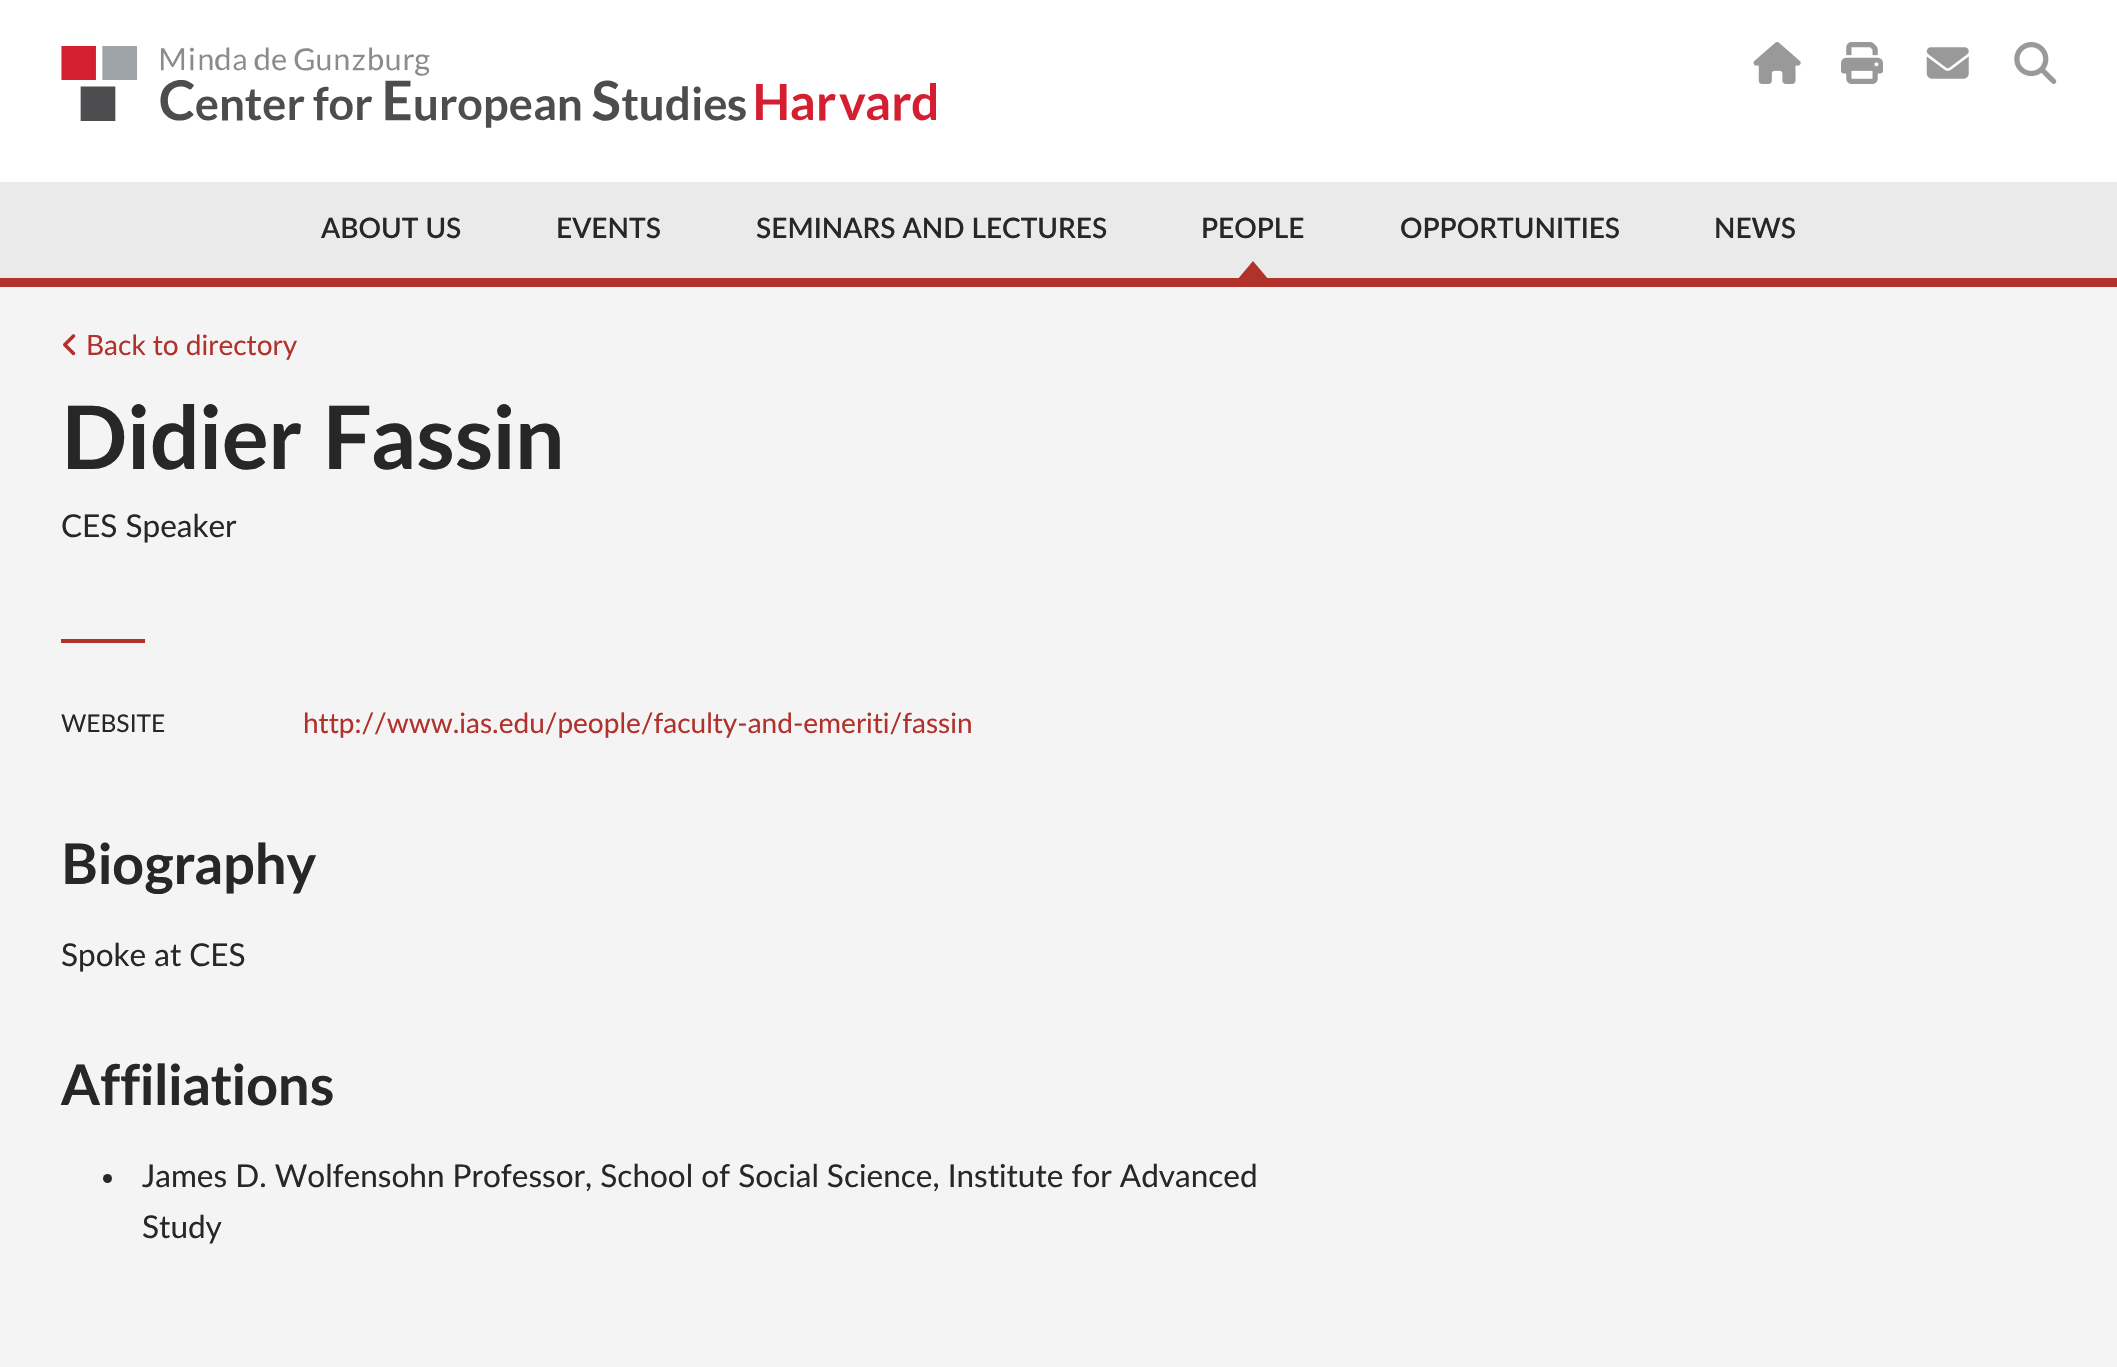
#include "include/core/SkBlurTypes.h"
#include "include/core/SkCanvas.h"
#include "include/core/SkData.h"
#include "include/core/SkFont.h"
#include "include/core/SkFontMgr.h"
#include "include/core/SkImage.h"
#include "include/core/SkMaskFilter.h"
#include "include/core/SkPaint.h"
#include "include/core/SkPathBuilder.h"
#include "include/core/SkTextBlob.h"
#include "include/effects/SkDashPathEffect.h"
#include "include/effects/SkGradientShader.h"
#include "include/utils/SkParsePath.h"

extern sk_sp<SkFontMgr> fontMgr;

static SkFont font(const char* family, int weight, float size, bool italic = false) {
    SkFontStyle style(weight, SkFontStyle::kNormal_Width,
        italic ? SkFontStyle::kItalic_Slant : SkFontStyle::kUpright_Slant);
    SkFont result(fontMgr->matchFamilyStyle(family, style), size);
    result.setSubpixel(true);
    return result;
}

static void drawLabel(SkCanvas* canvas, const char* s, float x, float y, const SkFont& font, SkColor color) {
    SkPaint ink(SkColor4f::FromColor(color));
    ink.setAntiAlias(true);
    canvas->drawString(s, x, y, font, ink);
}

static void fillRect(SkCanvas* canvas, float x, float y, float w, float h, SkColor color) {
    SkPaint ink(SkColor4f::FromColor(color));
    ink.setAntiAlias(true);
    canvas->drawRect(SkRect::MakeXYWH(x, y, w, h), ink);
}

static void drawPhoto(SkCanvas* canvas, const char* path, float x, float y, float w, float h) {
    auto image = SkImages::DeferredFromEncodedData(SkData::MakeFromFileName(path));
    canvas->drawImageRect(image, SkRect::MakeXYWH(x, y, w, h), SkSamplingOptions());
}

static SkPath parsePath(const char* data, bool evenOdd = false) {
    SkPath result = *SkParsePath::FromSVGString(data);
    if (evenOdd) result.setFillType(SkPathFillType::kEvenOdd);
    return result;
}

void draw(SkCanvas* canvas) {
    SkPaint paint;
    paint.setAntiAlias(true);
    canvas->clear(0xFFFFFFFF);
    drawPhoto(canvas, "assets/img1.png", 61, 46, 875, 82);
    drawPhoto(canvas, "assets/img2.png", 1753, 42, 48, 42);
    drawPhoto(canvas, "assets/img3.png", 1841, 42, 42, 42);
    drawPhoto(canvas, "assets/img4.png", 1926, 47, 43, 32);
    drawPhoto(canvas, "assets/img5.png", 2014, 42, 43, 42);
    fillRect(canvas, 0, 182, 2117, 96, 0xFFEAEAEA);
    SkFont font1 = font("Lato", 600, 28);
    drawLabel(canvas, "ABOUT US", 321, 238, font1, 0xFF272727);
    drawLabel(canvas, "EVENTS", 556, 238, font1, 0xFF272727);
    drawLabel(canvas, "SEMINARS AND LECTURES", 756, 238, font1, 0xFF272727);
    drawLabel(canvas, "PEOPLE", 1201, 238, font1, 0xFF272727);
    fillRect(canvas, 0, 278, 2117, 9, 0xFFB1312B);
    paint.setColor(0xFFB1312B);
    canvas->drawPath(parsePath("M1269 280H1237L1253 261Z"), paint);
    drawLabel(canvas, "OPPORTUNITIES", 1400, 238, font1, 0xFF272727);
    drawLabel(canvas, "NEWS", 1714, 238, font1, 0xFF272727);
    fillRect(canvas, 0, 287, 2117, 1080, 0xFFF4F4F4);
    drawPhoto(canvas, "assets/img6.png", 63, 334, 13, 22);
    SkFont font2 = font("Lato", 400, 28);
    drawLabel(canvas, "Back to directory", 86, 355, font2, 0xFFB1312B);
    SkFont font3 = font("Lato", 700, 87.5f);
    drawLabel(canvas, "Didier Fassin", 61, 469, font3, 0xFF272727);
    SkFont font4 = font("Lato", 400, 31.5f);
    drawLabel(canvas, "CES Speaker", 61, 537, font4, 0xFF272727);
    fillRect(canvas, 61, 639, 84, 4, 0xFFB1312B);
    SkFont font5 = font("Lato", 400, 24.5f);
    drawLabel(canvas, "WEBSITE", 61, 732, font5, 0xFF272727);
    drawLabel(canvas, "http://www.ias.edu/people/faculty-and-emeriti/fassin", 303, 733, font2, 0xFFB1312B);
    SkFont font6 = font("Lato", 700, 56);
    drawLabel(canvas, "Biography", 61, 884, font6, 0xFF272727);
    drawLabel(canvas, "Spoke at CES", 61, 966, font4, 0xFF272727);
    drawLabel(canvas, "Affiliations", 61, 1105, font6, 0xFF272727);
    paint.setColor(0xFF272727);
    canvas->drawCircle(107.5f, 1178.5f, 4.5f, paint);
    drawLabel(canvas, "James D. Wolfensohn Professor, School of Social Science, Institute for Advanced", 142, 1187, font4, 0xFF272727);
    drawLabel(canvas, "Study", 142, 1238, font4, 0xFF272727);
}
